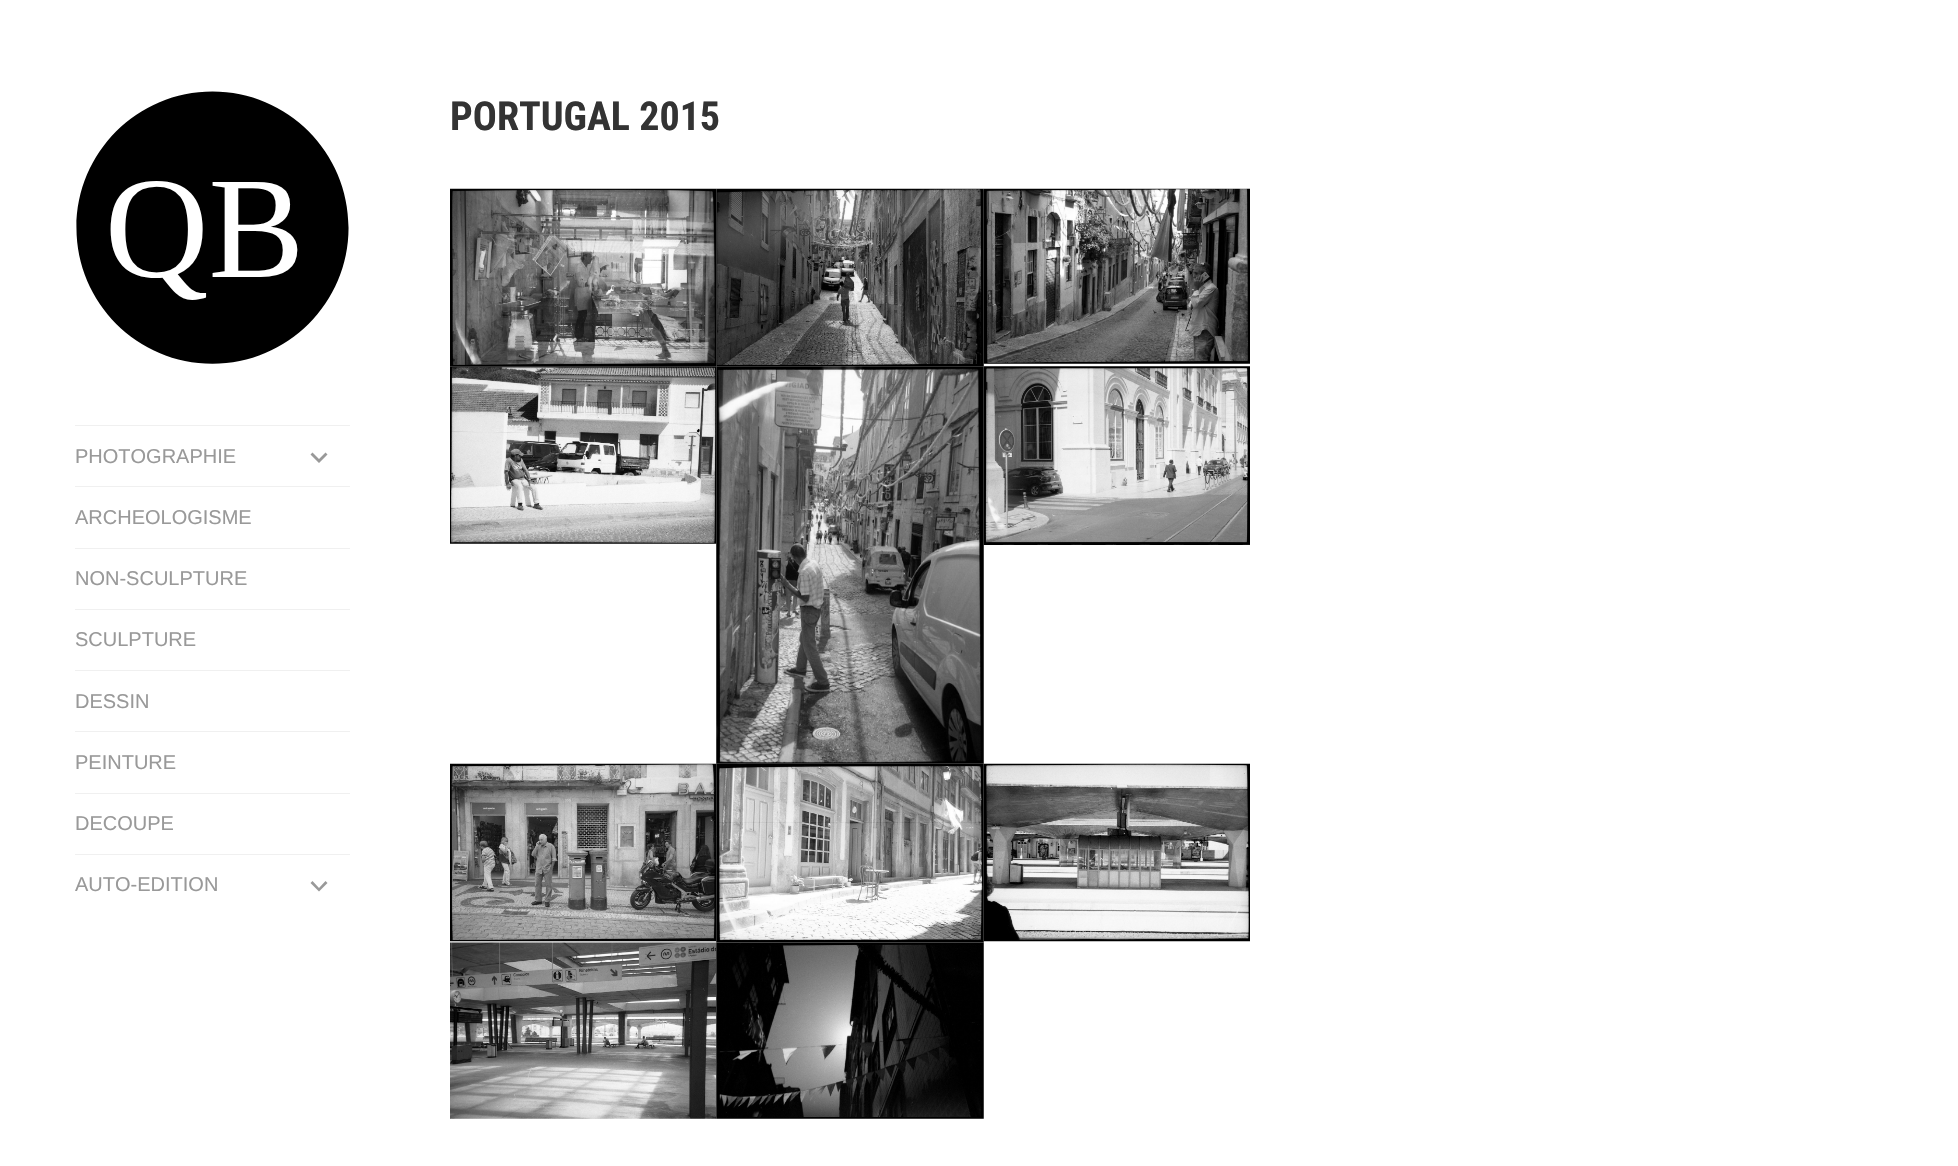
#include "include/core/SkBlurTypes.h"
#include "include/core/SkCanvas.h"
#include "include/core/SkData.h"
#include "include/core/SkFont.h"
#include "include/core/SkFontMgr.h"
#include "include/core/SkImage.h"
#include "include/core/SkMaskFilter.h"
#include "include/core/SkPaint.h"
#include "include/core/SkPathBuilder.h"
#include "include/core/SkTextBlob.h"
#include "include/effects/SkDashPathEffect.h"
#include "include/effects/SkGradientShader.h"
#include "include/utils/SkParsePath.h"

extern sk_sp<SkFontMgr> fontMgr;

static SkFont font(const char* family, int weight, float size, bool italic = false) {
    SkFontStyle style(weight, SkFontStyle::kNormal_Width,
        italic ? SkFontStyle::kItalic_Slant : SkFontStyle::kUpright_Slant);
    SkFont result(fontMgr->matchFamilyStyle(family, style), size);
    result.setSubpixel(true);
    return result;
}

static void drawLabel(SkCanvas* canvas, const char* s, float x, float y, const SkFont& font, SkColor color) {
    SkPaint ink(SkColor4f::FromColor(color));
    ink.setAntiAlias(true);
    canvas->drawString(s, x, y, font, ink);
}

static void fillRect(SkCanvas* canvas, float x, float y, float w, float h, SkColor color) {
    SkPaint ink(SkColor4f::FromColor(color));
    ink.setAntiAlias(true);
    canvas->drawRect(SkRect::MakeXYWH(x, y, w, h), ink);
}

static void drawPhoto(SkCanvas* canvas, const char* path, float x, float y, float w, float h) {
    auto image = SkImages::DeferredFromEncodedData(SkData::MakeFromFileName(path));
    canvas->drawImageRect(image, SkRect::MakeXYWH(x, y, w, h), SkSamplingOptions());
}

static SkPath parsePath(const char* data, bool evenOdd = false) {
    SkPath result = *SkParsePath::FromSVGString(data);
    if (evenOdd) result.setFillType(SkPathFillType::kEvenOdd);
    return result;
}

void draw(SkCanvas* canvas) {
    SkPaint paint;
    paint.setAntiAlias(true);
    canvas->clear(0xFFFFFFFF);
    SkFont font1 = font("Roboto Condensed", 700, 40);
    drawLabel(canvas, "PORTUGAL 2015", 450, 130, font1, 0xFF333333);
    drawPhoto(canvas, "assets/img1.png", 450, 188, 267, 179);
    drawPhoto(canvas, "assets/img2.png", 716, 188, 268, 179);
    drawPhoto(canvas, "assets/img3.png", 983, 188, 267, 176);
    drawPhoto(canvas, "assets/img4.png", 450, 366, 267, 178);
    drawPhoto(canvas, "assets/img5.png", 716, 366, 268, 398);
    drawPhoto(canvas, "assets/img6.png", 983, 366, 267, 179);
    drawPhoto(canvas, "assets/img7.png", 450, 763, 267, 179);
    drawPhoto(canvas, "assets/img8.png", 716, 763, 268, 180);
    drawPhoto(canvas, "assets/img9.png", 983, 763, 267, 179);
    drawPhoto(canvas, "assets/img10.png", 450, 942, 267, 177);
    drawPhoto(canvas, "assets/img11.png", 716, 942, 268, 177);
    drawPhoto(canvas, "assets/img12.png", 76, 91, 273, 273);
    fillRect(canvas, 75, 425, 275, 1, 0xFFF0F0F0);
    SkFont font2 = font("Arimo", 400, 20);
    drawLabel(canvas, "PHOTOGRAPHIE", 75, 463, font2, 0xFF999999);
    paint.setColor(0xFF999999);
    canvas->drawPath(parsePath("M325.5 452.5L327.5 454.5L319 463L310.5 454.5L312.5 452.5L319 459Z"), paint);
    fillRect(canvas, 75, 486, 275, 1, 0xFFF0F0F0);
    drawLabel(canvas, "ARCHEOLOGISME", 75, 524, font2, 0xFF999999);
    fillRect(canvas, 75, 548, 275, 1, 0xFFF0F0F0);
    drawLabel(canvas, "NON-SCULPTURE", 75, 585, font2, 0xFF999999);
    fillRect(canvas, 75, 609, 275, 1, 0xFFF0F0F0);
    drawLabel(canvas, "SCULPTURE", 75, 646, font2, 0xFF999999);
    fillRect(canvas, 75, 670, 275, 1, 0xFFF0F0F0);
    drawLabel(canvas, "DESSIN", 75, 708, font2, 0xFF999999);
    fillRect(canvas, 75, 731, 275, 1, 0xFFF0F0F0);
    drawLabel(canvas, "PEINTURE", 75, 769, font2, 0xFF999999);
    fillRect(canvas, 75, 793, 275, 1, 0xFFF0F0F0);
    drawLabel(canvas, "DECOUPE", 75, 830, font2, 0xFF999999);
    fillRect(canvas, 75, 854, 275, 1, 0xFFF0F0F0);
    drawLabel(canvas, "AUTO-EDITION", 75, 891, font2, 0xFF999999);
    canvas->drawPath(parsePath("M325.5 881L327.5 883L319 891.5L310.5 883L312.5 881L319 888Z"), paint);
}
